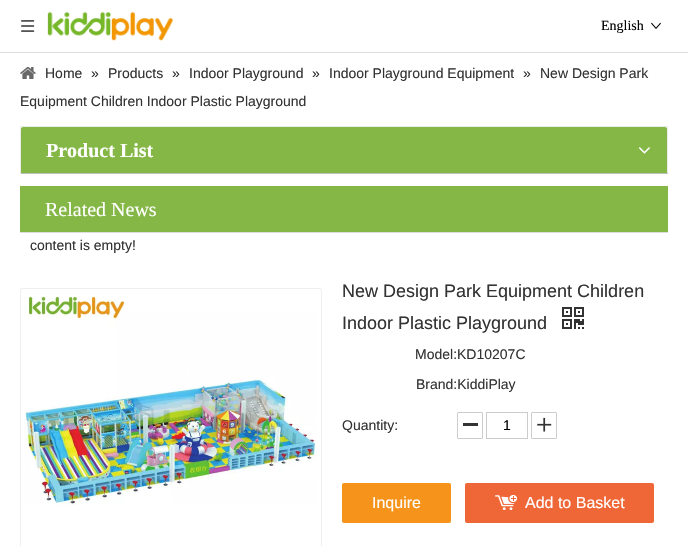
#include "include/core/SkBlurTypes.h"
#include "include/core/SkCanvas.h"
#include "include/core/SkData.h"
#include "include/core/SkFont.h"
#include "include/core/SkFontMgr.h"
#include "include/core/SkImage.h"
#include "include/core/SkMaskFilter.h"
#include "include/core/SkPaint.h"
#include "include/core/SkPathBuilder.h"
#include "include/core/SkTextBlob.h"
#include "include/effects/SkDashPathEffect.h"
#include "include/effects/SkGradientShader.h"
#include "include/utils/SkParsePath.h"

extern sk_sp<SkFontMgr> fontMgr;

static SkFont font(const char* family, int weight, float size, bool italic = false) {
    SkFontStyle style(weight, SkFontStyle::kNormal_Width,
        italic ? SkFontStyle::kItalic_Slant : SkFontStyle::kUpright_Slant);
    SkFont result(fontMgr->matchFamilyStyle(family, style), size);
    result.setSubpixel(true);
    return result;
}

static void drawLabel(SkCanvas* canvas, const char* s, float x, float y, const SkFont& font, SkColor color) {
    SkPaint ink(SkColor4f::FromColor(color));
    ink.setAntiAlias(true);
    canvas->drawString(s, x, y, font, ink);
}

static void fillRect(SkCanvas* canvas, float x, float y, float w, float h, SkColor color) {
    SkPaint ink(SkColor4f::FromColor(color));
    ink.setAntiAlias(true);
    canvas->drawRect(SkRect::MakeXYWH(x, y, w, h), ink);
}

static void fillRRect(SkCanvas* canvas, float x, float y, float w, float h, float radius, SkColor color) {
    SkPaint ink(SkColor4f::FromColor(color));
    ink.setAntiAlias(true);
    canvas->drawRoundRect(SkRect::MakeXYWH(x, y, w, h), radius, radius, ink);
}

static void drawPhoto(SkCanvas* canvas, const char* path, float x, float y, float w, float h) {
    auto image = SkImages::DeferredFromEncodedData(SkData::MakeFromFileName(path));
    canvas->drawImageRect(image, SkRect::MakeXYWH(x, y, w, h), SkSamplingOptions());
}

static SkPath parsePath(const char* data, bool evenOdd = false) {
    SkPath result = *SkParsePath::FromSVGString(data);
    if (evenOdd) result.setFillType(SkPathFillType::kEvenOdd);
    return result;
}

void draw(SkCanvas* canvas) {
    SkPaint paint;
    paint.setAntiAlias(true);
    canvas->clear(0xFFFFFFFF);
    drawPhoto(canvas, "assets/img1.png", 21, 20, 14, 12);
    drawPhoto(canvas, "assets/img2.png", 47, 11, 127, 30);
    SkFont font1 = font("Liberation Serif", 400, 14);
    drawLabel(canvas, "English", 601, 30, font1, 0xFF000000);
    drawPhoto(canvas, "assets/img3.png", 651, 22, 10, 7);
    fillRect(canvas, 0, 52, 688, 1, 0xFFDDDDDD);
    drawPhoto(canvas, "assets/img4.png", 20, 67, 16, 12);
    SkFont font2 = font("Liberation Sans", 400, 14);
    drawLabel(canvas, "Home", 45, 78, font2, 0xFF333333);
    drawLabel(canvas, "»", 91, 78, font2, 0xFF333333);
    drawLabel(canvas, "Products", 108, 78, font2, 0xFF333333);
    drawLabel(canvas, "»", 172, 78, font2, 0xFF333333);
    drawLabel(canvas, "Indoor Playground", 189, 78, font2, 0xFF333333);
    drawLabel(canvas, "»", 312, 78, font2, 0xFF333333);
    drawLabel(canvas, "Indoor Playground Equipment", 329, 78, font2, 0xFF333333);
    drawLabel(canvas, "»", 523, 78, font2, 0xFF333333);
    drawLabel(canvas, "New Design Park", 540, 78, font2, 0xFF333333);
    drawLabel(canvas, "Equipment Children Indoor Plastic Playground", 20, 106, font2, 0xFF333333);
    fillRect(canvas, 21, 127, 646, 2, 0xFFF6F5F4);
    fillRect(canvas, 20, 126, 648, 1, 0xFFEAEAEA);
    fillRect(canvas, 667, 126, 1, 48, 0xFFEAEAEA);
    fillRect(canvas, 20, 173, 648, 1, 0xFFBEBEBE);
    fillRect(canvas, 20, 126, 1, 48, 0xFFEAEAEA);
    paint.setColor(0xFF84B745);
    canvas->drawPath(parsePath("M23 127H665C666 127 667 128 667 129V173H21V129C21 128 22 127 23 127Z"), paint);
    SkFont font3 = font("Liberation Serif", 700, 20);
    drawLabel(canvas, "Product List", 46, 157, font3, 0xFFFFFFFF);
    drawPhoto(canvas, "assets/img5.png", 638, 147, 12, 7);
    fillRect(canvas, 20, 186, 648, 46, 0xFF84B745);
    fillRect(canvas, 20, 232, 648, 1, 0xFFDDDDDD);
    SkFont font4 = font("Liberation Serif", 400, 20);
    drawLabel(canvas, "Related News", 45, 216, font4, 0xFFFFFFFF);
    drawLabel(canvas, "content is empty!", 30, 250, font2, 0xFF333333);
    paint.setStroke(true);
    paint.setStrokeWidth(1);
    paint.setColor(0xFFEFEFEF);
    canvas->drawRoundRect(SkRect::MakeXYWH(20.5f, 288.5f, 301, 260), 1.5f, 1.5f, paint);
    drawPhoto(canvas, "assets/img6.png", 25, 296, 292, 209);
    SkFont font5 = font("Liberation Sans", 400, 18);
    drawLabel(canvas, "New Design Park Equipment Children", 342, 297, font5, 0xFF333333);
    drawLabel(canvas, "Indoor Plastic Playground", 342, 329, font5, 0xFF333333);
    drawPhoto(canvas, "assets/img7.png", 562, 307, 22, 22);
    drawLabel(canvas, "Model:KD10207C", 415, 359, font2, 0xFF333333);
    drawLabel(canvas, "Brand:KiddiPlay", 416, 389, font2, 0xFF333333);
    drawLabel(canvas, "Quantity:", 342, 430, font2, 0xFF333333);
    fillRect(canvas, 463, 423, 15, 3, 0xFF333333);
    paint.setColor(0xFFCCCCCC);
    canvas->drawRoundRect(SkRect::MakeXYWH(457.5f, 412.5f, 25, 26), 0.5f, 0.5f, paint);
    canvas->drawRect(SkRect::MakeXYWH(486.5f, 412.5f, 41, 26), paint);
    drawLabel(canvas, "1", 503, 430, font2, 0xFF000000);
    drawPhoto(canvas, "assets/img8.png", 537, 417, 15, 15);
    canvas->drawRoundRect(SkRect::MakeXYWH(531.5f, 412.5f, 25, 26), 0.5f, 0.5f, paint);
    fillRRect(canvas, 342, 483, 109, 40, 2, 0xFFF6931B);
    SkFont font6 = font("Liberation Sans", 400, 16);
    drawLabel(canvas, "Inquire", 372, 508, font6, 0xFFFFFFFF);
    fillRRect(canvas, 465, 483, 189, 40, 2, 0xFFEF6737);
    drawPhoto(canvas, "assets/img9.png", 495, 495, 22, 15);
    drawLabel(canvas, "Add to Basket", 525, 508, font6, 0xFFFFFFFF);
}
